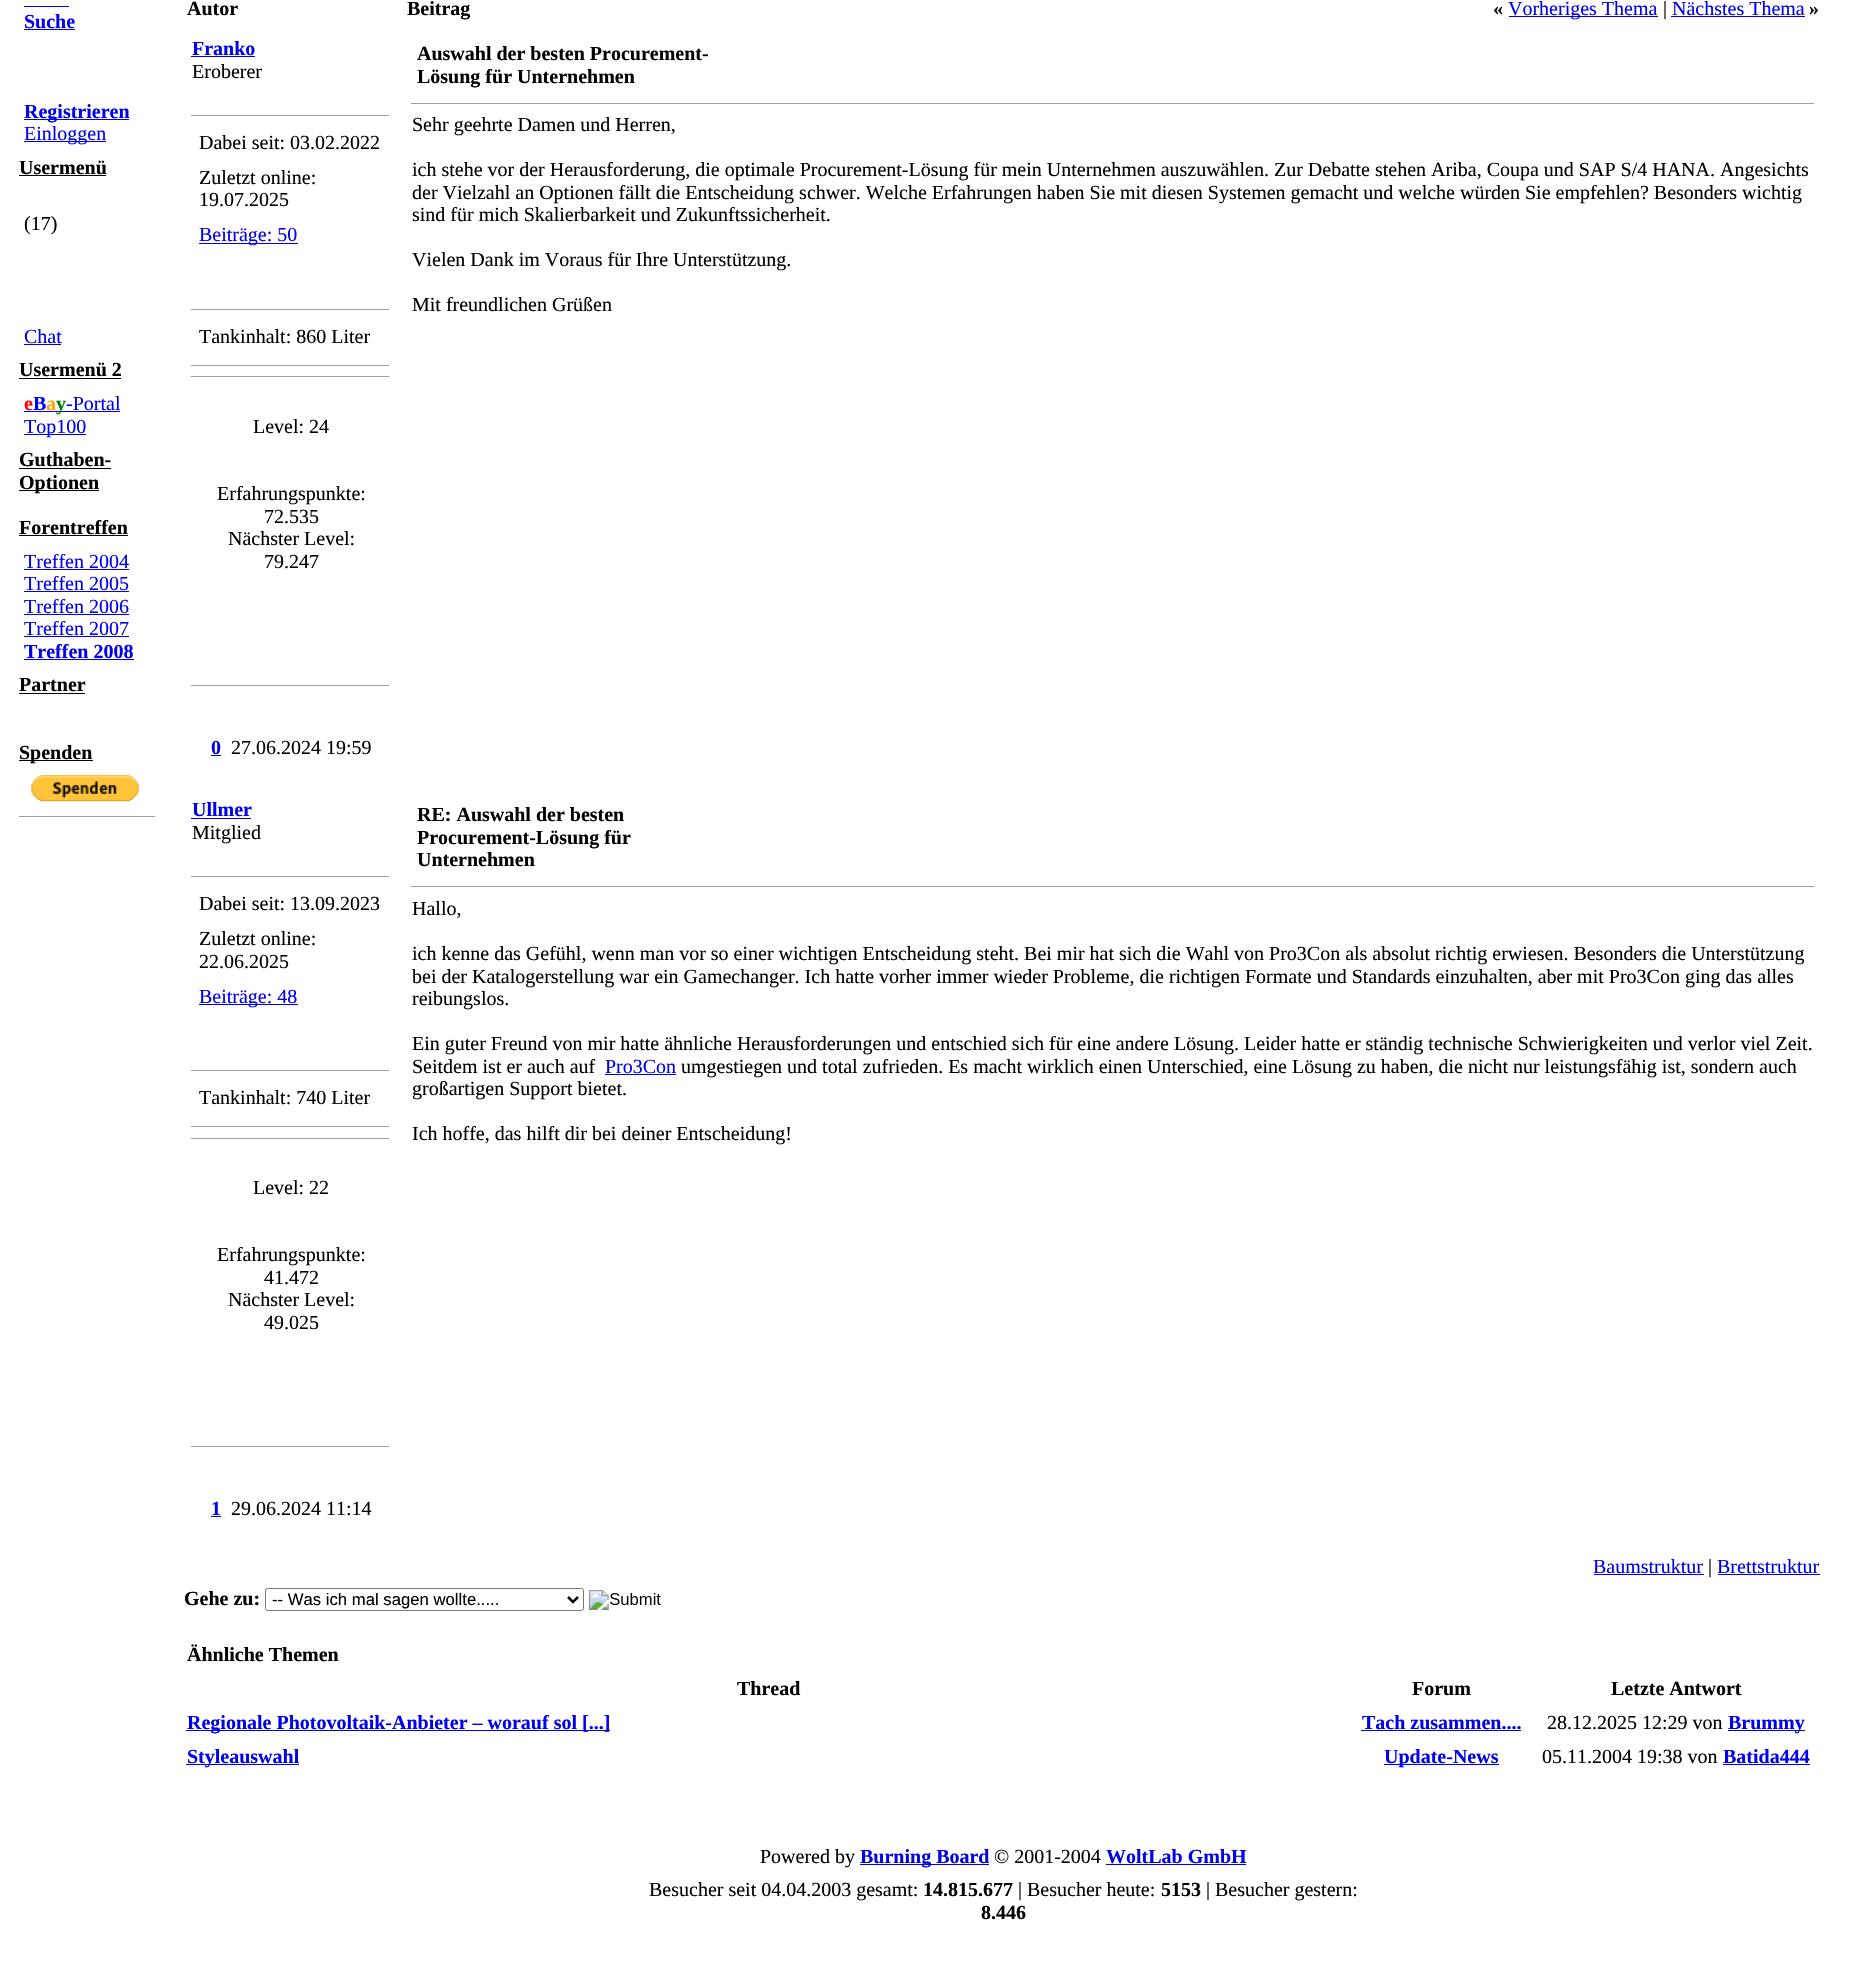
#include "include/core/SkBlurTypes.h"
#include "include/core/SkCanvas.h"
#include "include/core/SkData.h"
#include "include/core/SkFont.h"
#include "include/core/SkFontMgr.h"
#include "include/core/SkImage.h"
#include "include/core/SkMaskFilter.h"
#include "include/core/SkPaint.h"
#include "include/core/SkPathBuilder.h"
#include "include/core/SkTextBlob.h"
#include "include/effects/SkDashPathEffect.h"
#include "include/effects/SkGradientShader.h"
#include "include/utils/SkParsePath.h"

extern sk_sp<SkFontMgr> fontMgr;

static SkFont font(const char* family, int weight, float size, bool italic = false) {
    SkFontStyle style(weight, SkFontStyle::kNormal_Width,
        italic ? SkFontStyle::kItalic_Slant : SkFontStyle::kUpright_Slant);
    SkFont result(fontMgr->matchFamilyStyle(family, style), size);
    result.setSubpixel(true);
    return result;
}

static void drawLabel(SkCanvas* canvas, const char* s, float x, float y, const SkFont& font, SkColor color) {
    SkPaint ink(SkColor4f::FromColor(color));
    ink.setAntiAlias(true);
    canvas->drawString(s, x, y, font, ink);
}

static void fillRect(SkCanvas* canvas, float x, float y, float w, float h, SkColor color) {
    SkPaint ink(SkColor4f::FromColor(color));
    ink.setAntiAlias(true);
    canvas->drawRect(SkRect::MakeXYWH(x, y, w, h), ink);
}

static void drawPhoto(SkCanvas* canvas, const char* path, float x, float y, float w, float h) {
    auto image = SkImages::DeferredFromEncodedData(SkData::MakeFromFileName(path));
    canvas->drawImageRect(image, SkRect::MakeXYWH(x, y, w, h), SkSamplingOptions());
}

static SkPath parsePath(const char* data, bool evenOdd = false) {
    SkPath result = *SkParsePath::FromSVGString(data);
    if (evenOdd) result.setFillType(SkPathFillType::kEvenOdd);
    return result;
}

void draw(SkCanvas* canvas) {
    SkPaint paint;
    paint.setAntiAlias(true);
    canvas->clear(0xFFFFFFFF);
    SkFont font1 = font("Liberation Serif", 700, 20);
    drawLabel(canvas, "Suche", 24, 28, font1, 0xFF0000EE);
    fillRect(canvas, 24, 6, 45, 1, 0xFF0000EE);
    fillRect(canvas, 24, 29, 51, 1, 0xFF0000EE);
    fillRect(canvas, 24, 119, 105, 1, 0xFF0000EE);
    drawLabel(canvas, "Registrieren", 24, 118, font1, 0xFF0000EE);
    fillRect(canvas, 24, 141, 82, 1, 0xFF0000EE);
    SkFont font2 = font("Liberation Serif", 400, 20);
    drawLabel(canvas, "Einloggen", 24, 140, font2, 0xFF0000EE);
    drawLabel(canvas, "Usermenü", 19, 174, font1, 0xFF000000);
    fillRect(canvas, 19, 175, 87, 1, 0xFF000000);
    drawLabel(canvas, "(17)", 24, 230, font2, 0xFF000000);
    drawLabel(canvas, "Chat", 24, 343, font2, 0xFF0000EE);
    fillRect(canvas, 24, 344, 37, 1, 0xFF0000EE);
    drawLabel(canvas, "Usermenü 2", 19, 376, font1, 0xFF000000);
    fillRect(canvas, 19, 378, 102, 1, 0xFF000000);
    drawLabel(canvas, "e", 24, 410, font1, 0xFFFF0000);
    drawLabel(canvas, "B", 33, 410, font1, 0xFF0000FF);
    drawLabel(canvas, "a", 46, 410, font1, 0xFFFFA500);
    fillRect(canvas, 24, 411, 96, 1, 0xFF0000EE);
    drawLabel(canvas, "y", 56, 410, font1, 0xFF008000);
    drawLabel(canvas, "-Portal", 66, 410, font2, 0xFF0000EE);
    fillRect(canvas, 24, 434, 62, 1, 0xFF0000EE);
    drawLabel(canvas, "Top100", 24, 433, font2, 0xFF0000EE);
    drawLabel(canvas, "Guthaben-", 19, 466, font1, 0xFF000000);
    fillRect(canvas, 19, 468, 92, 1, 0xFF000000);
    fillRect(canvas, 19, 490, 80, 1, 0xFF000000);
    drawLabel(canvas, "Optionen", 19, 489, font1, 0xFF000000);
    drawLabel(canvas, "Forentreffen", 19, 534, font1, 0xFF000000);
    fillRect(canvas, 19, 535, 109, 1, 0xFF000000);
    drawLabel(canvas, "Treffen 2004", 24, 568, font2, 0xFF0000EE);
    fillRect(canvas, 24, 569, 105, 1, 0xFF0000EE);
    drawLabel(canvas, "Treffen 2005", 24, 590, font2, 0xFF0000EE);
    fillRect(canvas, 24, 591, 105, 1, 0xFF0000EE);
    drawLabel(canvas, "Treffen 2006", 24, 613, font2, 0xFF0000EE);
    fillRect(canvas, 24, 614, 105, 1, 0xFF0000EE);
    drawLabel(canvas, "Treffen 2007", 24, 635, font2, 0xFF0000EE);
    fillRect(canvas, 24, 636, 105, 1, 0xFF0000EE);
    drawLabel(canvas, "Treffen 2008", 24, 658, font1, 0xFF0000EE);
    fillRect(canvas, 24, 659, 110, 1, 0xFF0000EE);
    drawLabel(canvas, "Partner", 19, 691, font1, 0xFF000000);
    fillRect(canvas, 19, 693, 66, 1, 0xFF000000);
    fillRect(canvas, 19, 760, 74, 1, 0xFF000000);
    drawLabel(canvas, "Spenden", 19, 759, font1, 0xFF000000);
    drawPhoto(canvas, "assets/img1.png", 31, 775, 108, 27);
    fillRect(canvas, 19, 816, 137, 1, 0xFF9F9F9F);
    fillRect(canvas, 155, 816, 1, 1, 0xFFEEEEEE);
    drawLabel(canvas, "Autor", 187, 15, font1, 0xFF000000);
    drawLabel(canvas, "Beitrag", 407, 15, font1, 0xFF000000);
    drawLabel(canvas, "«", 1493, 15, font1, 0xFF000000);
    fillRect(canvas, 1509, 16, 149, 1, 0xFF0000EE);
    drawLabel(canvas, "Vorheriges Thema", 1508, 15, font2, 0xFF0000EE);
    drawLabel(canvas, "|", 1663, 15, font2, 0xFF000000);
    drawLabel(canvas, "Nächstes Thema", 1672, 15, font2, 0xFF0000EE);
    fillRect(canvas, 1671, 16, 134, 1, 0xFF0000EE);
    drawLabel(canvas, "»", 1809, 15, font1, 0xFF000000);
    drawLabel(canvas, "Franko", 192, 55, font1, 0xFF0000EE);
    fillRect(canvas, 191, 56, 64, 1, 0xFF0000EE);
    drawLabel(canvas, "Eroberer", 192, 78, font2, 0xFF000000);
    fillRect(canvas, 191, 115, 199, 1, 0xFF9F9F9F);
    fillRect(canvas, 389, 115, 1, 1, 0xFFEEEEEE);
    drawLabel(canvas, "Dabei seit: 03.02.2022", 199, 149, font2, 0xFF000000);
    drawLabel(canvas, "Zuletzt online:", 199, 184, font2, 0xFF000000);
    drawLabel(canvas, "19.07.2025", 199, 206, font2, 0xFF000000);
    fillRect(canvas, 199, 243, 99, 1, 0xFF0000EE);
    drawLabel(canvas, "Beiträge: 50", 199, 241, font2, 0xFF0000EE);
    fillRect(canvas, 191, 309, 199, 1, 0xFF9F9F9F);
    fillRect(canvas, 389, 309, 1, 1, 0xFFEEEEEE);
    drawLabel(canvas, "Tankinhalt: 860 Liter", 199, 343, font2, 0xFF000000);
    fillRect(canvas, 191, 365, 199, 1, 0xFF9F9F9F);
    fillRect(canvas, 389, 365, 1, 1, 0xFFEEEEEE);
    fillRect(canvas, 191, 376, 199, 1, 0xFF9F9F9F);
    fillRect(canvas, 389, 376, 1, 1, 0xFFEEEEEE);
    drawLabel(canvas, "Level: 24", 253, 433, font2, 0xFF000000);
    drawLabel(canvas, "Erfahrungspunkte:", 217, 500, font2, 0xFF000000);
    drawLabel(canvas, "72.535", 264, 523, font2, 0xFF000000);
    drawLabel(canvas, "Nächster Level:", 228, 545, font2, 0xFF000000);
    drawLabel(canvas, "79.247", 264, 568, font2, 0xFF000000);
    fillRect(canvas, 191, 685, 199, 1, 0xFF9F9F9F);
    fillRect(canvas, 389, 685, 1, 1, 0xFFEEEEEE);
    drawLabel(canvas, "Auswahl der besten Procurement-", 417, 60, font1, 0xFF000000);
    drawLabel(canvas, "Lösung für Unternehmen", 417, 83, font1, 0xFF000000);
    fillRect(canvas, 411, 103, 1404, 1, 0xFF9F9F9F);
    fillRect(canvas, 1814, 103, 1, 1, 0xFFEEEEEE);
    drawLabel(canvas, "Sehr geehrte Damen und Herren,", 412, 131, font2, 0xFF000000);
    drawLabel(canvas, "ich stehe vor der Herausforderung, die optimale Procurement-Lösung für mein Unternehmen auszuwählen. Zur Debatte stehen Ariba, Coupa und SAP S/4 HANA. Angesichts", 412, 176, font2, 0xFF000000);
    drawLabel(canvas, "der Vielzahl an Optionen fällt die Entscheidung schwer. Welche Erfahrungen haben Sie mit diesen Systemen gemacht und welche würden Sie empfehlen? Besonders wichtig", 412, 199, font2, 0xFF000000);
    drawLabel(canvas, "sind für mich Skalierbarkeit und Zukunftssicherheit.", 412, 221, font2, 0xFF000000);
    drawLabel(canvas, "Vielen Dank im Voraus für Ihre Unterstützung.", 412, 266, font2, 0xFF000000);
    drawLabel(canvas, "Mit freundlichen Grüßen", 412, 311, font2, 0xFF000000);
    drawLabel(canvas, "0", 211, 754, font1, 0xFF0000EE);
    fillRect(canvas, 211, 755, 10, 1, 0xFF0000EE);
    drawLabel(canvas, "27.06.2024 19:59", 231, 754, font2, 0xFF000000);
    drawLabel(canvas, "Ullmer", 192, 816, font1, 0xFF0000EE);
    fillRect(canvas, 191, 818, 60, 1, 0xFF0000EE);
    drawLabel(canvas, "Mitglied", 192, 839, font2, 0xFF000000);
    fillRect(canvas, 191, 876, 199, 1, 0xFF9F9F9F);
    fillRect(canvas, 389, 876, 1, 1, 0xFFEEEEEE);
    drawLabel(canvas, "Dabei seit: 13.09.2023", 199, 910, font2, 0xFF000000);
    drawLabel(canvas, "Zuletzt online:", 199, 945, font2, 0xFF000000);
    drawLabel(canvas, "22.06.2025", 199, 968, font2, 0xFF000000);
    fillRect(canvas, 199, 1004, 99, 1, 0xFF0000EE);
    drawLabel(canvas, "Beiträge: 48", 199, 1003, font2, 0xFF0000EE);
    fillRect(canvas, 191, 1070, 199, 1, 0xFF9F9F9F);
    fillRect(canvas, 389, 1070, 1, 1, 0xFFEEEEEE);
    drawLabel(canvas, "Tankinhalt: 740 Liter", 199, 1104, font2, 0xFF000000);
    fillRect(canvas, 191, 1126, 199, 1, 0xFF9F9F9F);
    fillRect(canvas, 389, 1126, 1, 1, 0xFFEEEEEE);
    fillRect(canvas, 191, 1138, 199, 1, 0xFF9F9F9F);
    fillRect(canvas, 389, 1138, 1, 1, 0xFFEEEEEE);
    drawLabel(canvas, "Level: 22", 253, 1194, font2, 0xFF000000);
    drawLabel(canvas, "Erfahrungspunkte:", 217, 1261, font2, 0xFF000000);
    drawLabel(canvas, "41.472", 264, 1284, font2, 0xFF000000);
    drawLabel(canvas, "Nächster Level:", 228, 1306, font2, 0xFF000000);
    drawLabel(canvas, "49.025", 264, 1329, font2, 0xFF000000);
    fillRect(canvas, 191, 1446, 199, 1, 0xFF9F9F9F);
    fillRect(canvas, 389, 1446, 1, 1, 0xFFEEEEEE);
    drawLabel(canvas, "RE: Auswahl der besten", 417, 821, font1, 0xFF000000);
    drawLabel(canvas, "Procurement-Lösung für", 417, 844, font1, 0xFF000000);
    drawLabel(canvas, "Unternehmen", 417, 866, font1, 0xFF000000);
    fillRect(canvas, 411, 886, 1404, 1, 0xFF9F9F9F);
    fillRect(canvas, 1814, 886, 1, 1, 0xFFEEEEEE);
    drawLabel(canvas, "Hallo,", 412, 915, font2, 0xFF000000);
    drawLabel(canvas, "ich kenne das Gefühl, wenn man vor so einer wichtigen Entscheidung steht. Bei mir hat sich die Wahl von Pro3Con als absolut richtig erwiesen. Besonders die Unterstützung", 412, 960, font2, 0xFF000000);
    drawLabel(canvas, "bei der Katalogerstellung war ein Gamechanger. Ich hatte vorher immer wieder Probleme, die richtigen Formate und Standards einzuhalten, aber mit Pro3Con ging das alles", 412, 983, font2, 0xFF000000);
    drawLabel(canvas, "reibungslos.", 412, 1005, font2, 0xFF000000);
    drawLabel(canvas, "Ein guter Freund von mir hatte ähnliche Herausforderungen und entschied sich für eine andere Lösung. Leider hatte er ständig technische Schwierigkeiten und verlor viel Zeit.", 412, 1050, font2, 0xFF000000);
    drawLabel(canvas, "Seitdem ist er auch auf", 412, 1073, font2, 0xFF000000);
    drawLabel(canvas, "Pro3Con", 605, 1073, font2, 0xFF0000EE);
    fillRect(canvas, 605, 1074, 71, 1, 0xFF0000EE);
    drawLabel(canvas, "umgestiegen und total zufrieden. Es macht wirklich einen Unterschied, eine Lösung zu haben, die nicht nur leistungsfähig ist, sondern auch", 681, 1073, font2, 0xFF000000);
    drawLabel(canvas, "großartigen Support bietet.", 412, 1095, font2, 0xFF000000);
    drawLabel(canvas, "Ich hoffe, das hilft dir bei deiner Entscheidung!", 412, 1140, font2, 0xFF000000);
    drawLabel(canvas, "1", 211, 1515, font1, 0xFF0000EE);
    fillRect(canvas, 211, 1516, 10, 1, 0xFF0000EE);
    drawLabel(canvas, "29.06.2024 11:14", 231, 1515, font2, 0xFF000000);
    drawLabel(canvas, "Baumstruktur", 1593, 1573, font2, 0xFF0000EE);
    fillRect(canvas, 1594, 1574, 110, 1, 0xFF0000EE);
    drawLabel(canvas, "|", 1708, 1573, font2, 0xFF000000);
    drawLabel(canvas, "Brettstruktur", 1717, 1573, font2, 0xFF0000EE);
    fillRect(canvas, 1718, 1574, 102, 1, 0xFF0000EE);
    drawLabel(canvas, "Gehe zu:", 184, 1605, font1, 0xFF000000);
    paint.setStroke(true);
    paint.setStrokeWidth(1);
    paint.setColor(0xFF767676);
    canvas->drawRoundRect(SkRect::MakeXYWH(265.5f, 1588.5f, 318, 22), 2, 2, paint);
    paint.setStrokeWidth(2.5f);
    paint.setColor(0xFF000000);
    canvas->drawPath(parsePath("M568 1597L573 1602L578 1597"), paint);
    SkFont font3 = font("Liberation Sans", 400, 16.7f);
    drawLabel(canvas, "-- Was ich mal sagen wollte.....", 272, 1605, font3, 0xFF000000);
    drawPhoto(canvas, "assets/img2.png", 588, 1590, 73, 20);
    drawLabel(canvas, "Ähnliche Themen", 187, 1661, font1, 0xFF000000);
    drawLabel(canvas, "Thread", 737, 1695, font1, 0xFF000000);
    drawLabel(canvas, "Forum", 1412, 1695, font1, 0xFF000000);
    drawLabel(canvas, "Letzte Antwort", 1611, 1695, font1, 0xFF000000);
    fillRect(canvas, 186, 1730, 424, 1, 0xFF0000EE);
    drawLabel(canvas, "Regionale Photovoltaik-Anbieter – worauf sol [...]", 187, 1729, font1, 0xFF0000EE);
    drawLabel(canvas, "Tach zusammen....", 1362, 1729, font1, 0xFF0000EE);
    fillRect(canvas, 1361, 1730, 160, 1, 0xFF0000EE);
    drawLabel(canvas, "28.12.2025 12:29 von", 1547, 1729, font2, 0xFF000000);
    fillRect(canvas, 1728, 1730, 77, 1, 0xFF0000EE);
    drawLabel(canvas, "Brummy", 1728, 1729, font1, 0xFF0000EE);
    fillRect(canvas, 186, 1764, 113, 1, 0xFF0000EE);
    drawLabel(canvas, "Styleauswahl", 187, 1763, font1, 0xFF0000EE);
    fillRect(canvas, 1384, 1764, 115, 1, 0xFF0000EE);
    drawLabel(canvas, "Update-News", 1384, 1763, font1, 0xFF0000EE);
    drawLabel(canvas, "05.11.2004 19:38 von", 1542, 1763, font2, 0xFF000000);
    drawLabel(canvas, "Batida444", 1723, 1763, font1, 0xFF0000EE);
    fillRect(canvas, 1723, 1764, 87, 1, 0xFF0000EE);
    drawLabel(canvas, "Powered by", 760, 1863, font2, 0xFF000000);
    fillRect(canvas, 860, 1864, 129, 1, 0xFF0000EE);
    drawLabel(canvas, "Burning Board", 860, 1863, font1, 0xFF0000EE);
    drawLabel(canvas, "© 2001-2004", 994, 1863, font2, 0xFF000000);
    drawLabel(canvas, "WoltLab GmbH", 1106, 1863, font1, 0xFF0000EE);
    fillRect(canvas, 1106, 1864, 140, 1, 0xFF0000EE);
    drawLabel(canvas, "Besucher seit 04.04.2003 gesamt:", 649, 1896, font2, 0xFF000000);
    drawLabel(canvas, "14.815.677", 923, 1896, font1, 0xFF000000);
    drawLabel(canvas, "| Besucher heute:", 1018, 1896, font2, 0xFF000000);
    drawLabel(canvas, "5153", 1161, 1896, font1, 0xFF000000);
    drawLabel(canvas, "| Besucher gestern:", 1206, 1896, font2, 0xFF000000);
    drawLabel(canvas, "8.446", 981, 1919, font1, 0xFF000000);
}
